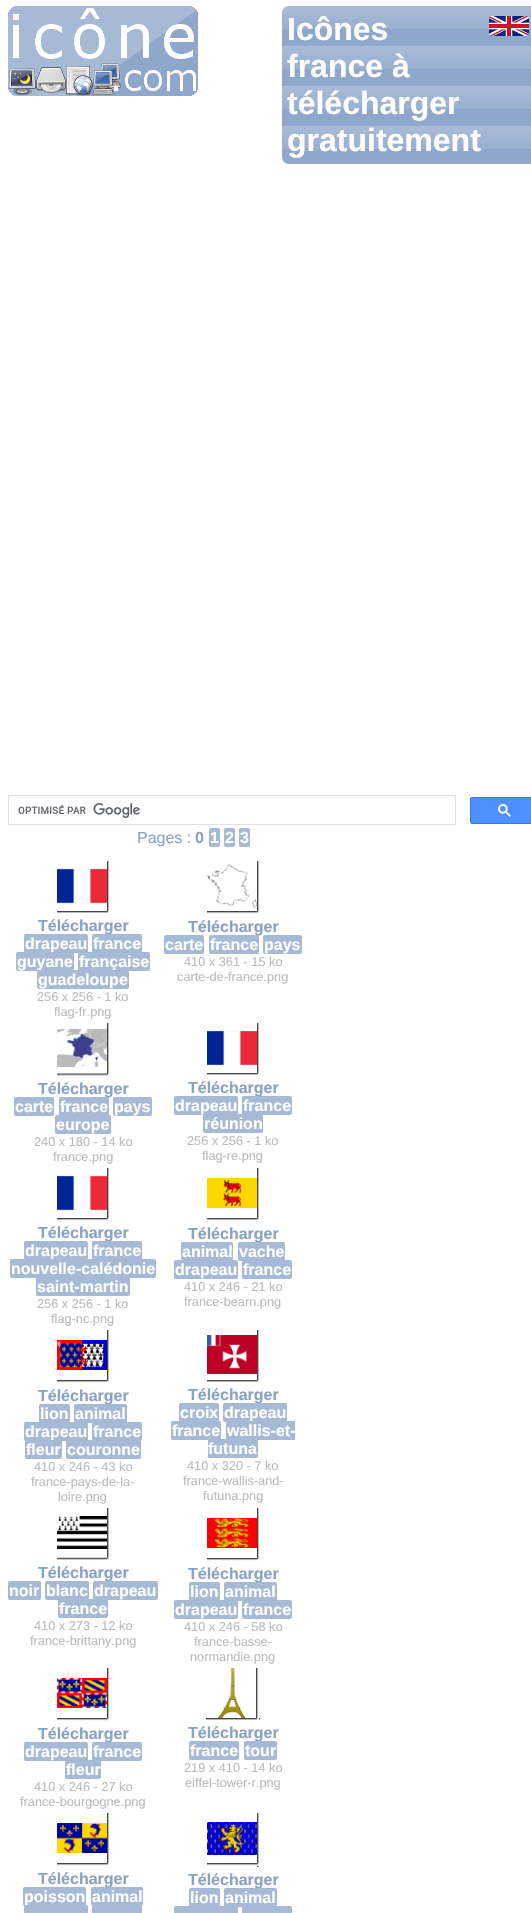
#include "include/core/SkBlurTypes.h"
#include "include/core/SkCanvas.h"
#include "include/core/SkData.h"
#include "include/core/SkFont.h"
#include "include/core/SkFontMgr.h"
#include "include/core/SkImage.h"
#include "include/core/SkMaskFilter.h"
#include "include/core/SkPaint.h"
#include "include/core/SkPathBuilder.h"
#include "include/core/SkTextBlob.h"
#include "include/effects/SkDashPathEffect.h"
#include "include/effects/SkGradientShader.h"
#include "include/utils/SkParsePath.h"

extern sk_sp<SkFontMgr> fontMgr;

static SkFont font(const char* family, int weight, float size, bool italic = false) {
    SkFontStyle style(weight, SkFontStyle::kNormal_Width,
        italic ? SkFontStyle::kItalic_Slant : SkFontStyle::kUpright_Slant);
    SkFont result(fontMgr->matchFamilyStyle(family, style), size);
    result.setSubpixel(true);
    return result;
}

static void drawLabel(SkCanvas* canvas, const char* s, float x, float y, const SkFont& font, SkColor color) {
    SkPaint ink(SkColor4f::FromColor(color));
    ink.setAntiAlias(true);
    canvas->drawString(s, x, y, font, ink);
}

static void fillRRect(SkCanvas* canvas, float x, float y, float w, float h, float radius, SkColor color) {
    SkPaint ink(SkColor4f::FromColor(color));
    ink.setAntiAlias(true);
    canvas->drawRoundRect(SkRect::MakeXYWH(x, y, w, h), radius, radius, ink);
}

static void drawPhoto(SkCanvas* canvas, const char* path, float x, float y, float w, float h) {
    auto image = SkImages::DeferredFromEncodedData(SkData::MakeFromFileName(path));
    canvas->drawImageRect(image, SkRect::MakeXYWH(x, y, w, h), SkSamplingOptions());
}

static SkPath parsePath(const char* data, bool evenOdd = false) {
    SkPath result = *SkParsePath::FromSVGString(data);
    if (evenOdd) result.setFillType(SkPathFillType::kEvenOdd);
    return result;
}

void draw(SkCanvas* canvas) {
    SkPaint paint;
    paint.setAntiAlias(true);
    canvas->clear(0xFFFFFFFF);
    drawPhoto(canvas, "assets/img1.png", 8, 6, 190, 90);
    drawPhoto(canvas, "assets/img2.png", 282, 6, 249, 158);
    SkFont font1 = font("Liberation Sans", 700, 32);
    drawLabel(canvas, "Icônes", 287, 40, font1, 0xFFFFFFFF);
    drawLabel(canvas, "france à", 287, 77, font1, 0xFFFFFFFF);
    drawLabel(canvas, "télécharger", 287, 114, font1, 0xFFFFFFFF);
    drawLabel(canvas, "gratuitement", 287, 151, font1, 0xFFFFFFFF);
    drawPhoto(canvas, "assets/img3.png", 489, 16, 40, 20);
    paint.setStroke(true);
    paint.setStrokeWidth(1);
    paint.setColor(0xFFDFE1E5);
    canvas->drawRect(SkRect::MakeXYWH(8.5f, 795.5f, 447, 29), paint);
    drawPhoto(canvas, "assets/img4.png", 18, 803, 122, 15);
    paint.setStroke(false);
    paint.setColor(0xFF4D90FE);
    canvas->drawRoundRect(SkRect::MakeXYWH(470.5f, 797.5f, 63, 26), 1.5f, 1.5f, paint);
    paint.setStroke(true);
    paint.setColor(0xFF3079ED);
    canvas->drawRoundRect(SkRect::MakeXYWH(470.5f, 797.5f, 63, 26), 1.5f, 1.5f, paint);
    drawPhoto(canvas, "assets/img5.png", 498, 804, 13, 13);
    SkFont font2 = font("Liberation Sans", 400, 16);
    drawLabel(canvas, "Pages :", 137, 843, font2, 0xFF8AA1C3);
    SkFont font3 = font("Liberation Sans", 700, 16);
    drawLabel(canvas, "0", 195, 843, font3, 0xFF8AA1C3);
    fillRRect(canvas, 209, 828, 11, 19, 2, 0xFFA6B9D5);
    drawLabel(canvas, "1", 210, 843, font3, 0xFFFFFFFF);
    fillRRect(canvas, 224, 828, 11, 19, 2, 0xFFA6B9D5);
    drawLabel(canvas, "2", 225, 843, font3, 0xFFFFFFFF);
    fillRRect(canvas, 239, 828, 11, 19, 2, 0xFFA6B9D5);
    drawLabel(canvas, "3", 240, 843, font3, 0xFFFFFFFF);
    drawPhoto(canvas, "assets/img6.png", 57, 861, 52, 52);
    drawPhoto(canvas, "assets/img7.png", 57, 868, 50, 36);
    drawLabel(canvas, "Télécharger", 38, 931, font3, 0xFF8AA1C3);
    fillRRect(canvas, 24, 934, 64, 19, 2, 0xFFA6B9D5);
    drawLabel(canvas, "drapeau", 25, 949, font3, 0xFFFFFFFF);
    fillRRect(canvas, 92, 934, 50, 19, 2, 0xFFA6B9D5);
    drawLabel(canvas, "france", 93, 949, font3, 0xFFFFFFFF);
    fillRRect(canvas, 16, 952, 58, 19, 2, 0xFFA6B9D5);
    drawLabel(canvas, "guyane", 17, 967, font3, 0xFFFFFFFF);
    fillRRect(canvas, 78, 952, 72, 19, 2, 0xFFA6B9D5);
    drawLabel(canvas, "française", 79, 967, font3, 0xFFFFFFFF);
    fillRRect(canvas, 37, 970, 92, 19, 2, 0xFFA6B9D5);
    drawLabel(canvas, "guadeloupe", 38, 985, font3, 0xFFFFFFFF);
    SkFont font4 = font("Liberation Sans", 400, 12.75f);
    drawLabel(canvas, "256 x 256 - 1 ko", 37, 1001, font4, 0xFFBBBBBB);
    drawLabel(canvas, "flag-fr.png", 54, 1016, font4, 0xFFBBBBBB);
    drawPhoto(canvas, "assets/img8.png", 207, 861, 52, 53);
    drawPhoto(canvas, "assets/img9.png", 207, 864, 50, 44);
    drawLabel(canvas, "Télécharger", 188, 932, font3, 0xFF8AA1C3);
    fillRRect(canvas, 164, 935, 40, 19, 2, 0xFFA6B9D5);
    drawLabel(canvas, "carte", 165, 950, font3, 0xFFFFFFFF);
    fillRRect(canvas, 209, 935, 50, 19, 2, 0xFFA6B9D5);
    drawLabel(canvas, "france", 210, 950, font3, 0xFFFFFFFF);
    fillRRect(canvas, 263, 935, 39, 19, 2, 0xFFA6B9D5);
    drawLabel(canvas, "pays", 264, 950, font3, 0xFFFFFFFF);
    drawLabel(canvas, "410 x 361 - 15 ko", 184, 966, font4, 0xFFBBBBBB);
    drawLabel(canvas, "carte-de-france.png", 177, 981, font4, 0xFFBBBBBB);
    drawPhoto(canvas, "assets/img10.png", 57, 1023, 52, 53);
    drawLabel(canvas, "Télécharger", 38, 1094, font3, 0xFF8AA1C3);
    fillRRect(canvas, 14, 1097, 40, 19, 2, 0xFFA6B9D5);
    drawLabel(canvas, "carte", 15, 1112, font3, 0xFFFFFFFF);
    fillRRect(canvas, 59, 1097, 50, 19, 2, 0xFFA6B9D5);
    drawLabel(canvas, "france", 60, 1112, font3, 0xFFFFFFFF);
    fillRRect(canvas, 113, 1097, 39, 19, 2, 0xFFA6B9D5);
    drawLabel(canvas, "pays", 114, 1112, font3, 0xFFFFFFFF);
    fillRRect(canvas, 55, 1115, 56, 19, 2, 0xFFA6B9D5);
    drawLabel(canvas, "europe", 56, 1130, font3, 0xFFFFFFFF);
    drawLabel(canvas, "240 x 180 - 14 ko", 34, 1146, font4, 0xFFBBBBBB);
    drawLabel(canvas, "france.png", 53, 1161, font4, 0xFFBBBBBB);
    drawPhoto(canvas, "assets/img6.png", 207, 1023, 52, 52);
    drawPhoto(canvas, "assets/img7.png", 207, 1030, 50, 36);
    drawLabel(canvas, "Télécharger", 188, 1093, font3, 0xFF8AA1C3);
    fillRRect(canvas, 174, 1096, 64, 19, 2, 0xFFA6B9D5);
    drawLabel(canvas, "drapeau", 175, 1111, font3, 0xFFFFFFFF);
    fillRRect(canvas, 242, 1096, 50, 19, 2, 0xFFA6B9D5);
    drawLabel(canvas, "france", 243, 1111, font3, 0xFFFFFFFF);
    fillRRect(canvas, 203, 1114, 60, 19, 2, 0xFFA6B9D5);
    drawLabel(canvas, "réunion", 204, 1129, font3, 0xFFFFFFFF);
    drawLabel(canvas, "256 x 256 - 1 ko", 187, 1145, font4, 0xFFBBBBBB);
    drawLabel(canvas, "flag-re.png", 202, 1160, font4, 0xFFBBBBBB);
    drawPhoto(canvas, "assets/img6.png", 57, 1168, 52, 52);
    drawPhoto(canvas, "assets/img7.png", 57, 1175, 50, 36);
    drawLabel(canvas, "Télécharger", 38, 1238, font3, 0xFF8AA1C3);
    fillRRect(canvas, 24, 1241, 64, 19, 2, 0xFFA6B9D5);
    drawLabel(canvas, "drapeau", 25, 1256, font3, 0xFFFFFFFF);
    fillRRect(canvas, 92, 1241, 50, 19, 2, 0xFFA6B9D5);
    drawLabel(canvas, "france", 93, 1256, font3, 0xFFFFFFFF);
    fillRRect(canvas, 10, 1259, 146, 19, 2, 0xFFA6B9D5);
    drawLabel(canvas, "nouvelle-calédonie", 11, 1274, font3, 0xFFFFFFFF);
    fillRRect(canvas, 36, 1277, 94, 19, 2, 0xFFA6B9D5);
    drawLabel(canvas, "saint-martin", 37, 1292, font3, 0xFFFFFFFF);
    drawLabel(canvas, "256 x 256 - 1 ko", 37, 1308, font4, 0xFFBBBBBB);
    drawLabel(canvas, "flag-nc.png", 51, 1323, font4, 0xFFBBBBBB);
    drawPhoto(canvas, "assets/img11.png", 207, 1168, 52, 53);
    drawLabel(canvas, "Télécharger", 188, 1239, font3, 0xFF8AA1C3);
    fillRRect(canvas, 181, 1242, 52, 19, 2, 0xFFA6B9D5);
    drawLabel(canvas, "animal", 182, 1257, font3, 0xFFFFFFFF);
    fillRRect(canvas, 238, 1242, 47, 19, 2, 0xFFA6B9D5);
    drawLabel(canvas, "vache", 239, 1257, font3, 0xFFFFFFFF);
    fillRRect(canvas, 174, 1260, 64, 19, 2, 0xFFA6B9D5);
    drawLabel(canvas, "drapeau", 175, 1275, font3, 0xFFFFFFFF);
    fillRRect(canvas, 242, 1260, 50, 19, 2, 0xFFA6B9D5);
    drawLabel(canvas, "france", 243, 1275, font3, 0xFFFFFFFF);
    drawLabel(canvas, "410 x 246 - 21 ko", 184, 1291, font4, 0xFFBBBBBB);
    drawLabel(canvas, "france-bearn.png", 184, 1306, font4, 0xFFBBBBBB);
    drawPhoto(canvas, "assets/img12.png", 57, 1330, 52, 53);
    drawPhoto(canvas, "assets/img13.png", 57, 1340, 50, 30);
    drawLabel(canvas, "Télécharger", 38, 1401, font3, 0xFF8AA1C3);
    fillRRect(canvas, 39, 1404, 31, 19, 2, 0xFFA6B9D5);
    drawLabel(canvas, "lion", 40, 1419, font3, 0xFFFFFFFF);
    fillRRect(canvas, 74, 1404, 53, 19, 2, 0xFFA6B9D5);
    drawLabel(canvas, "animal", 75, 1419, font3, 0xFFFFFFFF);
    fillRRect(canvas, 24, 1422, 64, 19, 2, 0xFFA6B9D5);
    drawLabel(canvas, "drapeau", 25, 1437, font3, 0xFFFFFFFF);
    fillRRect(canvas, 92, 1422, 50, 19, 2, 0xFFA6B9D5);
    drawLabel(canvas, "france", 93, 1437, font3, 0xFFFFFFFF);
    fillRRect(canvas, 25, 1440, 37, 19, 2, 0xFFA6B9D5);
    drawLabel(canvas, "fleur", 26, 1455, font3, 0xFFFFFFFF);
    fillRRect(canvas, 66, 1440, 75, 19, 2, 0xFFA6B9D5);
    drawLabel(canvas, "couronne", 67, 1455, font3, 0xFFFFFFFF);
    drawLabel(canvas, "410 x 246 - 43 ko", 34, 1471, font4, 0xFFBBBBBB);
    drawLabel(canvas, "france-pays-de-la-", 31, 1486, font4, 0xFFBBBBBB);
    drawLabel(canvas, "loire.png", 58, 1501, font4, 0xFFBBBBBB);
    drawPhoto(canvas, "assets/img14.png", 207, 1330, 52, 52);
    drawLabel(canvas, "Télécharger", 188, 1400, font3, 0xFF8AA1C3);
    fillRRect(canvas, 179, 1403, 40, 19, 2, 0xFFA6B9D5);
    drawLabel(canvas, "croix", 180, 1418, font3, 0xFFFFFFFF);
    fillRRect(canvas, 223, 1403, 64, 19, 2, 0xFFA6B9D5);
    drawLabel(canvas, "drapeau", 224, 1418, font3, 0xFFFFFFFF);
    fillRRect(canvas, 171, 1421, 50, 19, 2, 0xFFA6B9D5);
    drawLabel(canvas, "france", 172, 1436, font3, 0xFFFFFFFF);
    paint.setStroke(false);
    paint.setColor(0xFFA6B9D5);
    canvas->drawPath(parsePath("M228 1421H295V1440H228C227 1440 226 1439 226 1438V1423C226 1422 227 1421 228 1421Z"), paint);
    drawLabel(canvas, "wallis-et-", 227, 1436, font3, 0xFFFFFFFF);
    canvas->drawPath(parsePath("M208 1439H256C257 1439 258 1440 258 1441V1456C258 1457 257 1458 256 1458H208Z"), paint);
    drawLabel(canvas, "futuna", 208, 1454, font3, 0xFFFFFFFF);
    drawLabel(canvas, "410 x 320 - 7 ko", 187, 1470, font4, 0xFFBBBBBB);
    drawLabel(canvas, "france-wallis-and-", 183, 1485, font4, 0xFFBBBBBB);
    drawLabel(canvas, "futuna.png", 203, 1500, font4, 0xFFBBBBBB);
    drawPhoto(canvas, "assets/img15.png", 57, 1508, 52, 52);
    drawLabel(canvas, "Télécharger", 38, 1578, font3, 0xFF8AA1C3);
    fillRRect(canvas, 8, 1581, 33, 19, 2, 0xFFA6B9D5);
    drawLabel(canvas, "noir", 9, 1596, font3, 0xFFFFFFFF);
    fillRRect(canvas, 45, 1581, 44, 19, 2, 0xFFA6B9D5);
    drawLabel(canvas, "blanc", 46, 1596, font3, 0xFFFFFFFF);
    fillRRect(canvas, 93, 1581, 65, 19, 2, 0xFFA6B9D5);
    drawLabel(canvas, "drapeau", 94, 1596, font3, 0xFFFFFFFF);
    fillRRect(canvas, 58, 1599, 50, 19, 2, 0xFFA6B9D5);
    drawLabel(canvas, "france", 59, 1614, font3, 0xFFFFFFFF);
    drawLabel(canvas, "410 x 273 - 12 ko", 34, 1630, font4, 0xFFBBBBBB);
    drawLabel(canvas, "france-brittany.png", 30, 1645, font4, 0xFFBBBBBB);
    drawPhoto(canvas, "assets/img16.png", 207, 1508, 52, 53);
    drawPhoto(canvas, "assets/img17.png", 207, 1518, 50, 1);
    drawLabel(canvas, "Télécharger", 188, 1579, font3, 0xFF8AA1C3);
    fillRRect(canvas, 189, 1582, 31, 19, 2, 0xFFA6B9D5);
    drawLabel(canvas, "lion", 190, 1597, font3, 0xFFFFFFFF);
    fillRRect(canvas, 224, 1582, 53, 19, 2, 0xFFA6B9D5);
    drawLabel(canvas, "animal", 225, 1597, font3, 0xFFFFFFFF);
    fillRRect(canvas, 174, 1600, 64, 19, 2, 0xFFA6B9D5);
    drawLabel(canvas, "drapeau", 175, 1615, font3, 0xFFFFFFFF);
    fillRRect(canvas, 242, 1600, 50, 19, 2, 0xFFA6B9D5);
    drawLabel(canvas, "france", 243, 1615, font3, 0xFFFFFFFF);
    drawLabel(canvas, "410 x 246 - 58 ko", 184, 1631, font4, 0xFFBBBBBB);
    drawLabel(canvas, "france-basse-", 194, 1646, font4, 0xFFBBBBBB);
    drawLabel(canvas, "normandie.png", 190, 1661, font4, 0xFFBBBBBB);
    drawPhoto(canvas, "assets/img18.png", 57, 1668, 52, 53);
    drawLabel(canvas, "Télécharger", 38, 1739, font3, 0xFF8AA1C3);
    fillRRect(canvas, 24, 1742, 64, 19, 2, 0xFFA6B9D5);
    drawLabel(canvas, "drapeau", 25, 1757, font3, 0xFFFFFFFF);
    fillRRect(canvas, 92, 1742, 50, 19, 2, 0xFFA6B9D5);
    drawLabel(canvas, "france", 93, 1757, font3, 0xFFFFFFFF);
    fillRRect(canvas, 65, 1760, 36, 19, 2, 0xFFA6B9D5);
    drawLabel(canvas, "fleur", 66, 1775, font3, 0xFFFFFFFF);
    drawLabel(canvas, "410 x 246 - 27 ko", 34, 1791, font4, 0xFFBBBBBB);
    drawLabel(canvas, "france-bourgogne.png", 20, 1806, font4, 0xFFBBBBBB);
    drawPhoto(canvas, "assets/img19.png", 206, 1668, 54, 52);
    drawPhoto(canvas, "assets/img20.png", 218, 1668, 27, 50);
    drawLabel(canvas, "Télécharger", 188, 1738, font3, 0xFF8AA1C3);
    fillRRect(canvas, 189, 1741, 50, 19, 2, 0xFFA6B9D5);
    drawLabel(canvas, "france", 190, 1756, font3, 0xFFFFFFFF);
    fillRRect(canvas, 244, 1741, 33, 19, 2, 0xFFA6B9D5);
    drawLabel(canvas, "tour", 245, 1756, font3, 0xFFFFFFFF);
    drawLabel(canvas, "219 x 410 - 14 ko", 184, 1772, font4, 0xFFBBBBBB);
    drawLabel(canvas, "eiffel-tower-r.png", 185, 1787, font4, 0xFFBBBBBB);
    drawPhoto(canvas, "assets/img21.png", 57, 1813, 52, 53);
    drawPhoto(canvas, "assets/img22.png", 82, 1823, 25, 1);
    drawLabel(canvas, "Télécharger", 38, 1884, font3, 0xFF8AA1C3);
    fillRRect(canvas, 23, 1887, 63, 19, 2, 0xFFA6B9D5);
    drawLabel(canvas, "poisson", 24, 1902, font3, 0xFFFFFFFF);
    fillRRect(canvas, 91, 1887, 52, 19, 2, 0xFFA6B9D5);
    drawLabel(canvas, "animal", 92, 1902, font3, 0xFFFFFFFF);
    fillRRect(canvas, 24, 1905, 64, 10, 2, 0xFFA6B9D5);
    fillRRect(canvas, 92, 1905, 50, 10, 2, 0xFFA6B9D5);
    drawPhoto(canvas, "assets/img23.png", 207, 1813, 52, 54);
    drawLabel(canvas, "Télécharger", 188, 1885, font3, 0xFF8AA1C3);
    fillRRect(canvas, 189, 1888, 31, 19, 2, 0xFFA6B9D5);
    drawLabel(canvas, "lion", 190, 1903, font3, 0xFFFFFFFF);
    fillRRect(canvas, 224, 1888, 53, 19, 2, 0xFFA6B9D5);
    drawLabel(canvas, "animal", 225, 1903, font3, 0xFFFFFFFF);
    fillRRect(canvas, 174, 1906, 64, 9, 2, 0xFFA6B9D5);
    fillRRect(canvas, 242, 1906, 50, 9, 2, 0xFFA6B9D5);
}
